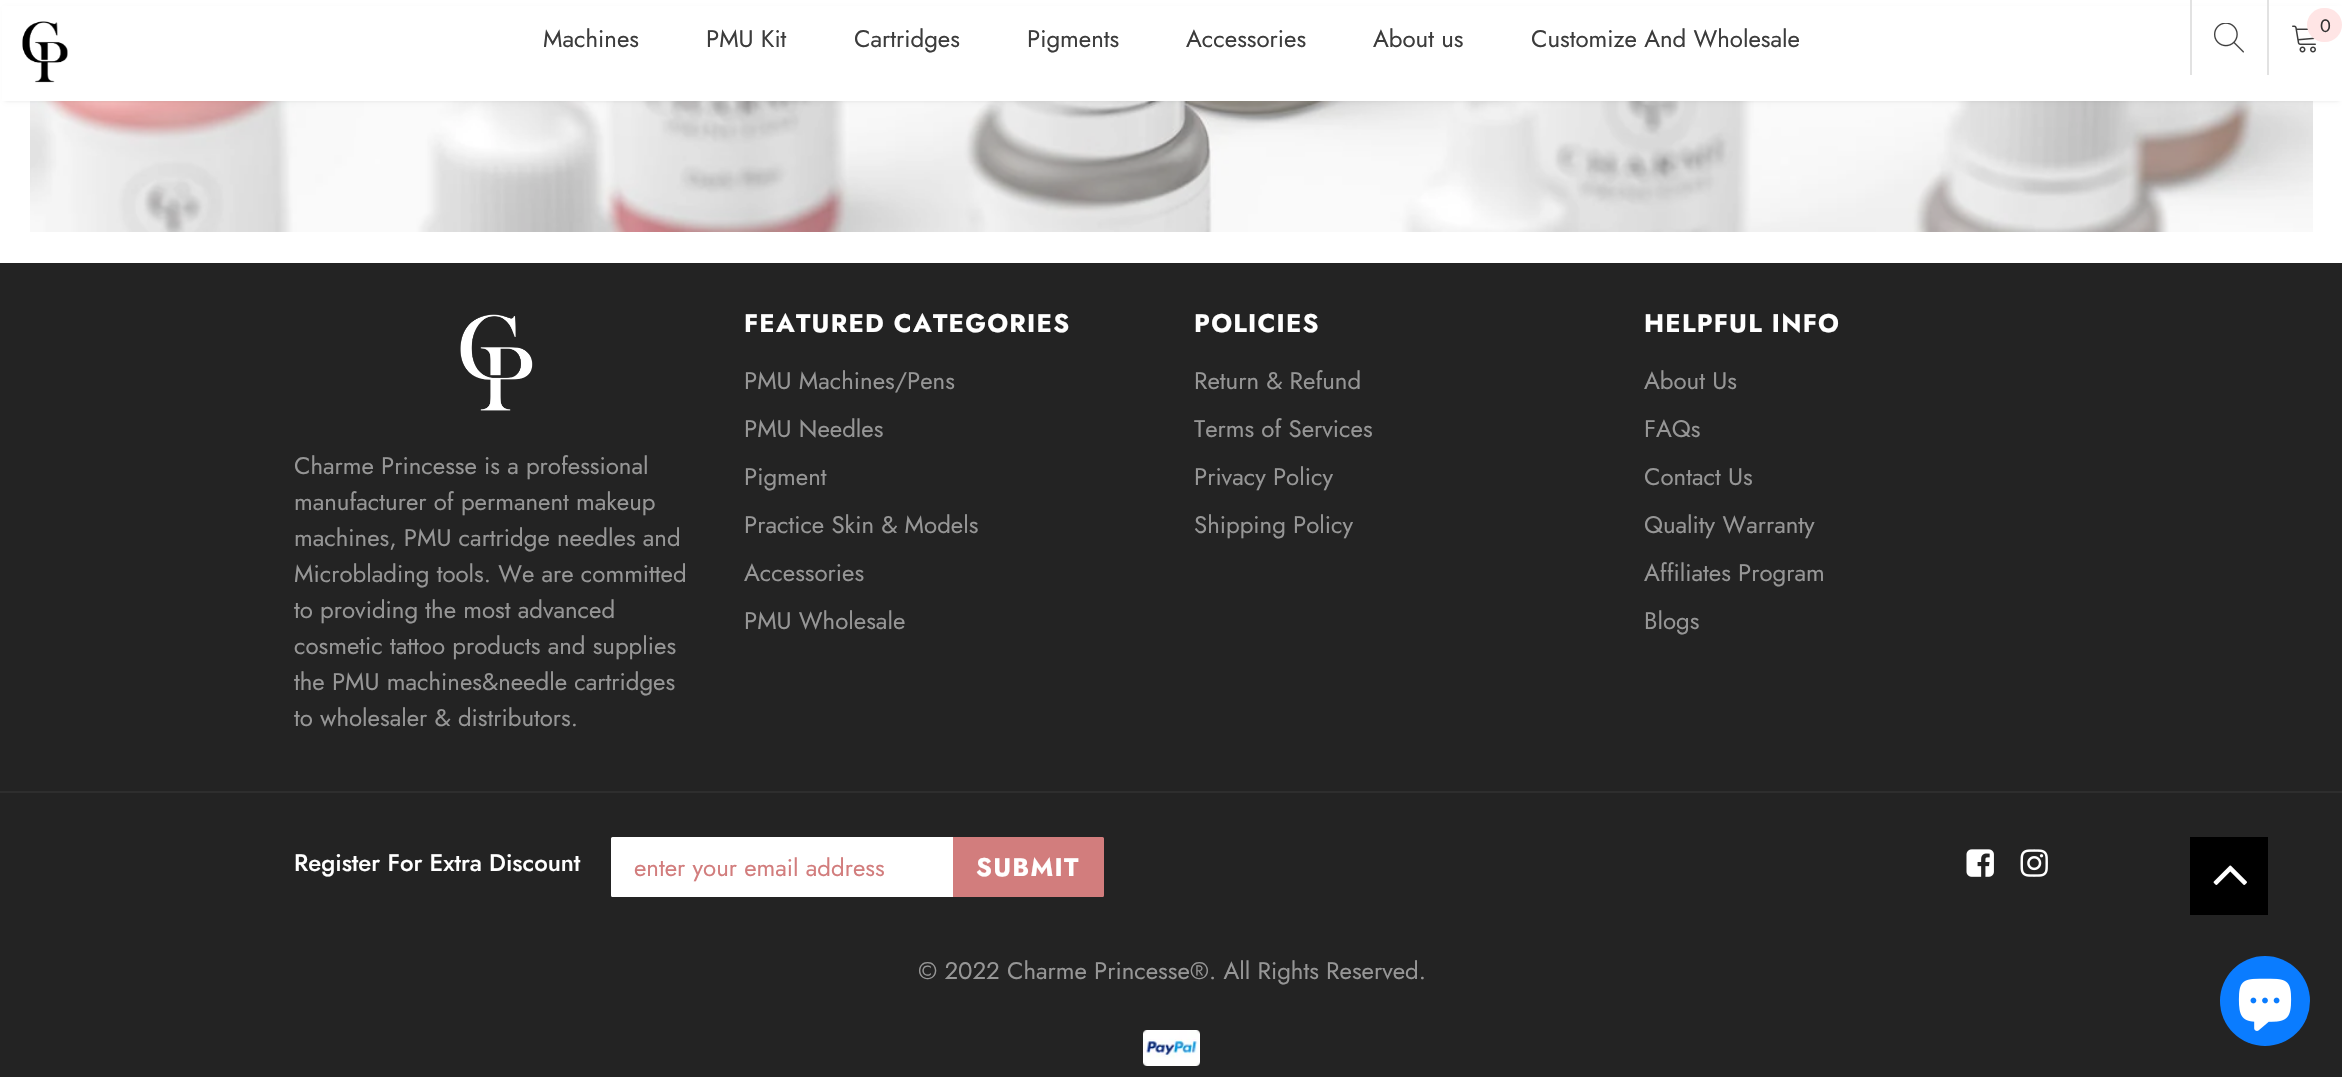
#include "include/core/SkBlurTypes.h"
#include "include/core/SkCanvas.h"
#include "include/core/SkData.h"
#include "include/core/SkFont.h"
#include "include/core/SkFontMgr.h"
#include "include/core/SkImage.h"
#include "include/core/SkMaskFilter.h"
#include "include/core/SkPaint.h"
#include "include/core/SkPathBuilder.h"
#include "include/core/SkTextBlob.h"
#include "include/effects/SkDashPathEffect.h"
#include "include/effects/SkGradientShader.h"
#include "include/utils/SkParsePath.h"

extern sk_sp<SkFontMgr> fontMgr;

static SkFont font(const char* family, int weight, float size, bool italic = false) {
    SkFontStyle style(weight, SkFontStyle::kNormal_Width,
        italic ? SkFontStyle::kItalic_Slant : SkFontStyle::kUpright_Slant);
    SkFont result(fontMgr->matchFamilyStyle(family, style), size);
    result.setSubpixel(true);
    return result;
}

static void drawLabel(SkCanvas* canvas, const char* s, float x, float y, const SkFont& font, SkColor color) {
    SkPaint ink(SkColor4f::FromColor(color));
    ink.setAntiAlias(true);
    canvas->drawString(s, x, y, font, ink);
}

static void drawTracked(SkCanvas* canvas, const char* s, float x, float y, const SkFont& font, const SkPaint& ink, float letter, float word) {
    std::vector<SkGlyphID> glyphs(font.countText(s, strlen(s), SkTextEncoding::kUTF8));
    std::vector<float> xs(glyphs.size());
    font.textToGlyphs(s, strlen(s), SkTextEncoding::kUTF8, glyphs);
    font.getXPos(glyphs, xs, x);
    float extra = 0;
    for (size_t i = 0; i < glyphs.size(); i++) {
        xs[i] += extra;
        extra += letter + word * (glyphs[i] == font.unicharToGlyph(' '));
    }
    canvas->drawTextBlob(SkTextBlob::MakeFromPosHGlyphs(glyphs, xs, y, font), 0, 0, ink);
}

static void fillRect(SkCanvas* canvas, float x, float y, float w, float h, SkColor color) {
    SkPaint ink(SkColor4f::FromColor(color));
    ink.setAntiAlias(true);
    canvas->drawRect(SkRect::MakeXYWH(x, y, w, h), ink);
}

static void fillRRect(SkCanvas* canvas, float x, float y, float w, float h, float radius, SkColor color) {
    SkPaint ink(SkColor4f::FromColor(color));
    ink.setAntiAlias(true);
    canvas->drawRoundRect(SkRect::MakeXYWH(x, y, w, h), radius, radius, ink);
}

static void drawPhoto(SkCanvas* canvas, const char* path, float x, float y, float w, float h) {
    auto image = SkImages::DeferredFromEncodedData(SkData::MakeFromFileName(path));
    canvas->drawImageRect(image, SkRect::MakeXYWH(x, y, w, h), SkSamplingOptions());
}

static SkPath parsePath(const char* data, bool evenOdd = false) {
    SkPath result = *SkParsePath::FromSVGString(data);
    if (evenOdd) result.setFillType(SkPathFillType::kEvenOdd);
    return result;
}

void draw(SkCanvas* canvas) {
    SkPaint paint;
    paint.setAntiAlias(true);
    canvas->clear(0xFFFFFFFF);
    drawPhoto(canvas, "assets/img4.png", 30, 101, 2283, 131);
    paint.setColor(0x1A000000);
    paint.setMaskFilter(SkMaskFilter::MakeBlur(kNormal_SkBlurStyle, 2));
    canvas->drawRect(SkRect::MakeXYWH(5, 9, 2334, 92), paint);
    paint.setMaskFilter(nullptr);
    fillRect(canvas, 2, 6, 2340, 95, 0xFFFFFFFF);
    drawPhoto(canvas, "assets/img1.png", 22, 21, 46, 62);
    SkFont font1 = font("Jost", 400, 24);
    drawLabel(canvas, "Machines", 543, 47, font1, 0xFF3C3C3C);
    drawLabel(canvas, "PMU Kit", 706, 47, font1, 0xFF3C3C3C);
    drawLabel(canvas, "Cartridges", 854, 47, font1, 0xFF3C3C3C);
    drawLabel(canvas, "Pigments", 1027, 47, font1, 0xFF3C3C3C);
    drawLabel(canvas, "Accessories", 1186, 47, font1, 0xFF3C3C3C);
    drawLabel(canvas, "About us", 1373, 47, font1, 0xFF3C3C3C);
    drawLabel(canvas, "Customize And Wholesale", 1531, 47, font1, 0xFF3C3C3C);
    fillRect(canvas, 2190, 0, 2, 75, 0xFFE2E2E2);
    drawPhoto(canvas, "assets/img2.png", 2214, 23, 30, 30);
    fillRect(canvas, 2267, 0, 2, 75, 0xFFE2E2E2);
    drawPhoto(canvas, "assets/img3.png", 2292, 25, 24, 28);
    fillRRect(canvas, 2307, 8, 35, 34, 17, 0xFFFFE5E5);
    SkFont font2 = font("Jost", 400, 18);
    drawLabel(canvas, "0", 2320, 32, font2, 0xFF323232);
    fillRect(canvas, 0, 263, 2342, 814, 0xFF232323);
    drawPhoto(canvas, "assets/img5.png", 460, 314, 73, 97);
    drawLabel(canvas, "Charme Princesse is a professional", 294, 474, font1, 0xFF969696);
    drawLabel(canvas, "manufacturer of permanent makeup", 294, 510, font1, 0xFF969696);
    drawLabel(canvas, "machines, PMU cartridge needles and", 294, 546, font1, 0xFF969696);
    drawLabel(canvas, "Microblading tools. We are committed", 294, 582, font1, 0xFF969696);
    drawLabel(canvas, "to providing the most advanced", 294, 618, font1, 0xFF969696);
    drawLabel(canvas, "cosmetic tattoo products and supplies", 294, 654, font1, 0xFF969696);
    drawLabel(canvas, "the PMU machines&needle cartridges", 294, 690, font1, 0xFF969696);
    drawLabel(canvas, "to wholesaler & distributors.", 294, 726, font1, 0xFF969696);
    SkFont font3 = font("Jost", 700, 25.5f);
    paint.setColor(0xFFFFFFFF);
    drawTracked(canvas, "FEATURED CATEGORIES", 744, 332, font3, paint, 1.25f, 0);
    drawLabel(canvas, "PMU Machines/Pens", 744, 389, font1, 0xFF969696);
    drawLabel(canvas, "PMU Needles", 744, 437, font1, 0xFF969696);
    drawLabel(canvas, "Pigment", 744, 485, font1, 0xFF969696);
    drawLabel(canvas, "Practice Skin & Models", 744, 533, font1, 0xFF969696);
    drawLabel(canvas, "Accessories", 744, 581, font1, 0xFF969696);
    drawLabel(canvas, "PMU Wholesale", 744, 629, font1, 0xFF969696);
    drawTracked(canvas, "POLICIES", 1194, 332, font3, paint, 1.25f, 0);
    drawLabel(canvas, "Return & Refund", 1194, 389, font1, 0xFF969696);
    drawLabel(canvas, "Terms of Services", 1194, 437, font1, 0xFF969696);
    drawLabel(canvas, "Privacy Policy", 1194, 485, font1, 0xFF969696);
    drawLabel(canvas, "Shipping Policy", 1194, 533, font1, 0xFF969696);
    drawTracked(canvas, "HELPFUL INFO", 1644, 332, font3, paint, 1.25f, 0);
    drawLabel(canvas, "About Us", 1644, 389, font1, 0xFF969696);
    drawLabel(canvas, "FAQs", 1644, 437, font1, 0xFF969696);
    drawLabel(canvas, "Contact Us", 1644, 485, font1, 0xFF969696);
    drawLabel(canvas, "Quality Warranty", 1644, 533, font1, 0xFF969696);
    drawLabel(canvas, "Affiliates Program", 1644, 581, font1, 0xFF969696);
    drawLabel(canvas, "Blogs", 1644, 629, font1, 0xFF969696);
    fillRect(canvas, 0, 791, 2342, 2, 0xFF2E2E2E);
    SkFont font4 = font("Jost", 500, 24);
    drawLabel(canvas, "Register For Extra Discount", 294, 871, font4, 0xFFFFFFFF);
    canvas->drawPath(parsePath("M612.5 838H952V896H612.5C612 896 612 896 612 895.5V838.5C612 838 612 838 612.5 838Z"), paint);
    paint.setStroke(true);
    paint.setStrokeWidth(2);
    canvas->drawPath(parsePath("M612.5 838H952V896H612.5C612 896 612 896 612 895.5V838.5C612 838 612 838 612.5 838Z"), paint);
    drawLabel(canvas, "enter your email address", 634, 876, font1, 0xFFD27D7D);
    paint.setStroke(false);
    paint.setColor(0xFFD27D7D);
    canvas->drawPath(parsePath("M954 838H1102.5C1103 838 1103 838 1103 838.5V895.5C1103 896 1103 896 1102.5 896H954Z"), paint);
    paint.setStroke(true);
    canvas->drawPath(parsePath("M954 838H1102.5C1103 838 1103 838 1103 838.5V895.5C1103 896 1103 896 1102.5 896H954Z"), paint);
    paint.setStroke(false);
    paint.setColor(0xFFFFFFFF);
    drawTracked(canvas, "SUBMIT", 976, 876, font3, paint, 1.25f, 0);
    drawPhoto(canvas, "assets/img6.png", 1966, 849, 28, 28);
    drawPhoto(canvas, "assets/img7.png", 2020, 849, 28, 28);
    drawLabel(canvas, "© 2022 Charme Princesse®. All Rights Reserved.", 918, 979, font1, 0xFF969696);
    drawPhoto(canvas, "assets/img8.png", 1143, 1030, 57, 36);
    fillRect(canvas, 2190, 837, 78, 78, 0xFF000000);
    drawPhoto(canvas, "assets/img9.png", 2213, 865, 34, 20);
    paint.setColor(0xFF0A7CFF);
    canvas->drawCircle(2265, 1001, 45, paint);
    drawPhoto(canvas, "assets/img10.png", 2238, 978, 54, 53);
}
